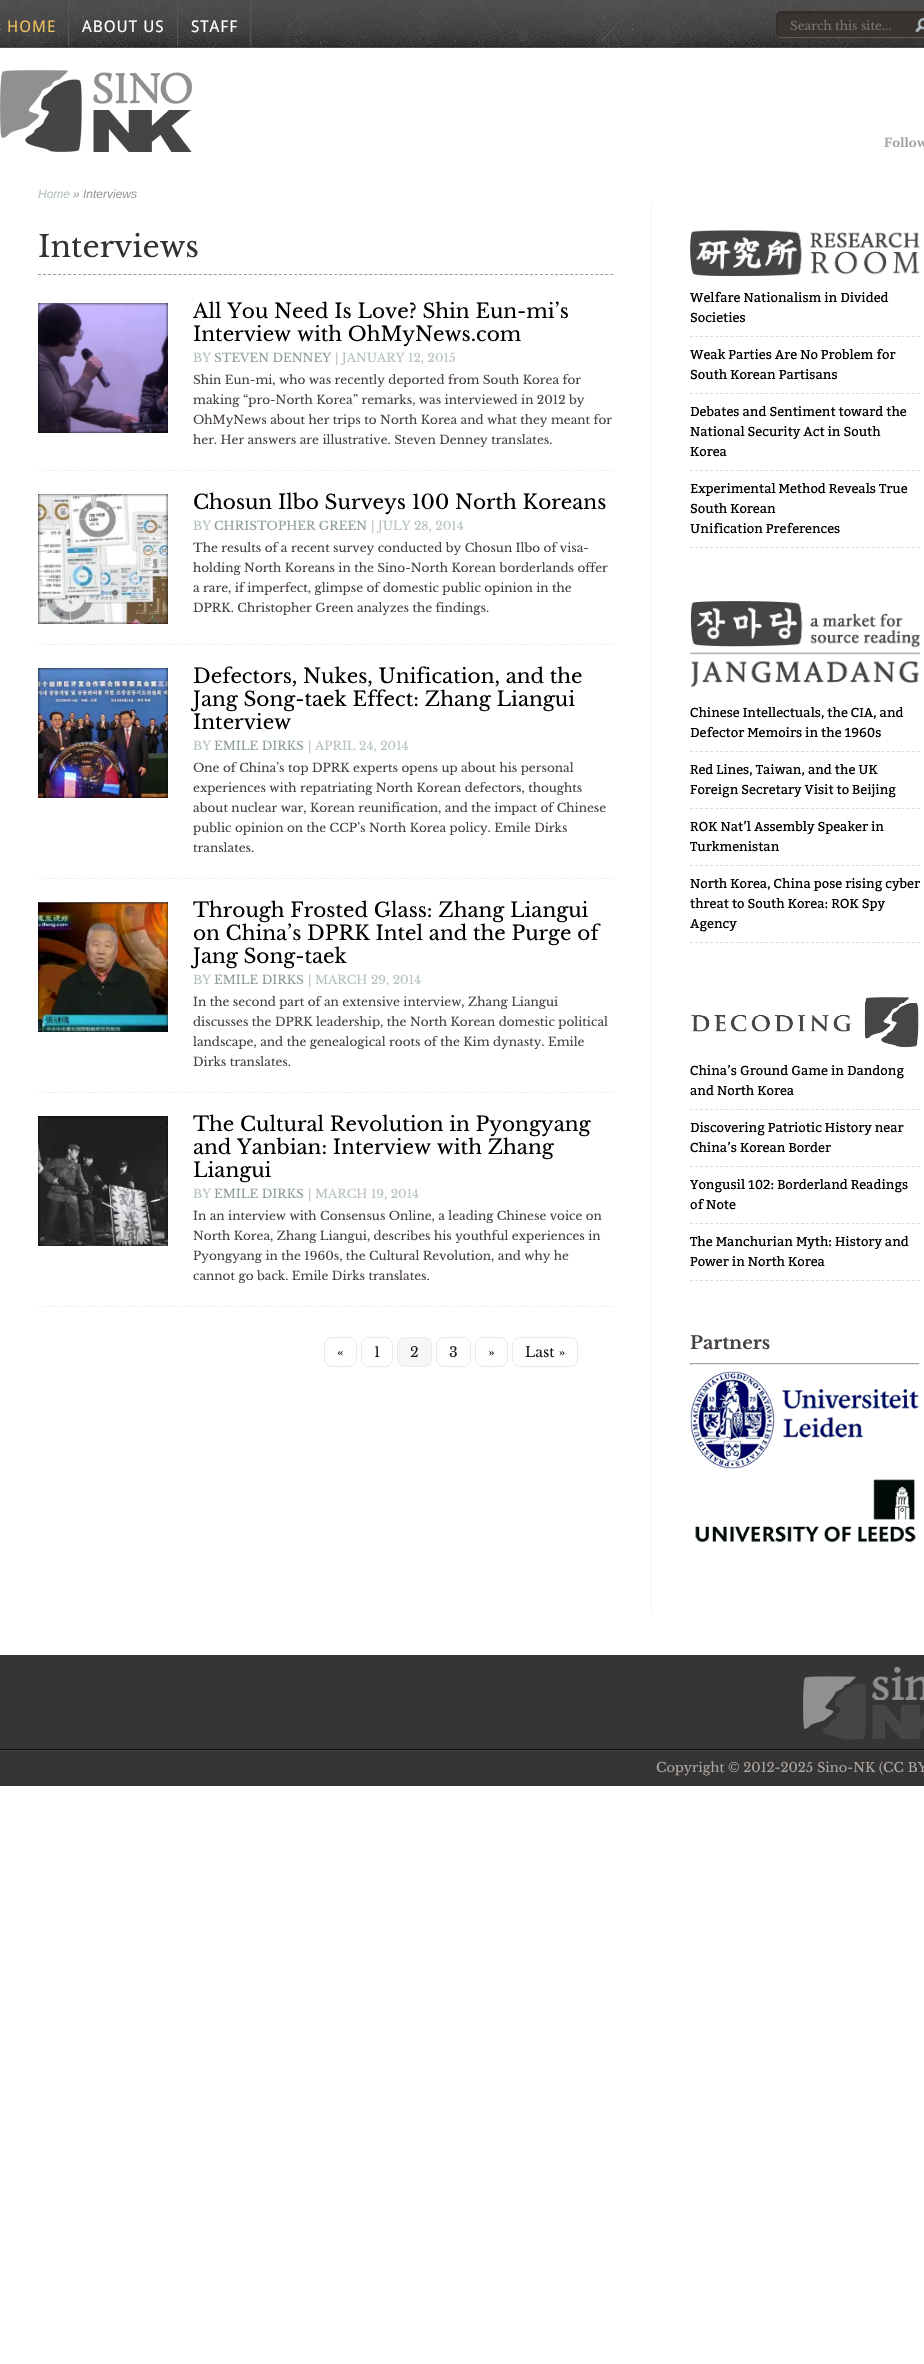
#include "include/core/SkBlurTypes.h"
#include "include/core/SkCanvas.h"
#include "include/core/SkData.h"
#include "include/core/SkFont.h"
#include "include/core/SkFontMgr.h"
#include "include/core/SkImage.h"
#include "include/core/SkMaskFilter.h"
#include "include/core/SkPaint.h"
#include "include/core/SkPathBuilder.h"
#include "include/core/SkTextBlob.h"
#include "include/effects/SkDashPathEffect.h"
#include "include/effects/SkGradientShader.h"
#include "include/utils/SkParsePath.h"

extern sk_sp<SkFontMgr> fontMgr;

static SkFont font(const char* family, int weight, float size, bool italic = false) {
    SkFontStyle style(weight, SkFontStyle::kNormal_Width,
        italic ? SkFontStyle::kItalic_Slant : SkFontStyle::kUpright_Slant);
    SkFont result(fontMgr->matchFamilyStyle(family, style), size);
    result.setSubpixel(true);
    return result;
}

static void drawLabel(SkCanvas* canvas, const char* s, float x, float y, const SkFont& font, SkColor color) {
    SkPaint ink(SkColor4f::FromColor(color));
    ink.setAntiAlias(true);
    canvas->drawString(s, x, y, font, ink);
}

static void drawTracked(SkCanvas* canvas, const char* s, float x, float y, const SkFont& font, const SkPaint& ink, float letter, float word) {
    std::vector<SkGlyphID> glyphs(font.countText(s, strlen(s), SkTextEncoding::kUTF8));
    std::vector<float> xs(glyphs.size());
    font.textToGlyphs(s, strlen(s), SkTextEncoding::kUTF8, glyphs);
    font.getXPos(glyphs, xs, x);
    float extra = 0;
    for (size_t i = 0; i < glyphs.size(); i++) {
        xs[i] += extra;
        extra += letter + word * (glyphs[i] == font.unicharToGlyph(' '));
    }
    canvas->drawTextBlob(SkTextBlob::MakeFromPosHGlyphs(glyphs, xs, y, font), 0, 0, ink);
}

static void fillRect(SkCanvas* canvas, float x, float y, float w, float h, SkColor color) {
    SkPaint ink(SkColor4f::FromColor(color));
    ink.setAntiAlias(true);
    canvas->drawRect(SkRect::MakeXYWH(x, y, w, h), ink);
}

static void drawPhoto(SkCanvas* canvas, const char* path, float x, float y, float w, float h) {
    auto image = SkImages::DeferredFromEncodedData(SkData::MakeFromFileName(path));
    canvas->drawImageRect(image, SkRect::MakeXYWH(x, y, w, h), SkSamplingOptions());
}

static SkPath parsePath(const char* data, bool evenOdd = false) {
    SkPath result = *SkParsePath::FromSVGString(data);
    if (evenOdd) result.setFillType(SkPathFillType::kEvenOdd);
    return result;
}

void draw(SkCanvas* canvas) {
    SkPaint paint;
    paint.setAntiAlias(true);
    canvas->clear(0xFFFFFFFF);
    drawPhoto(canvas, "assets/img1.png", 0, 0, 924, 48);
    drawPhoto(canvas, "assets/img2.png", 68, 0, 2, 46);
    SkFont font1 = font("Droid Sans", 400, 16);
    paint.setColor(0xFFEBBE5E);
    drawTracked(canvas, "HOME", 7, 32, font1, paint, 1, 0);
    drawPhoto(canvas, "assets/img3.png", 177, 0, 2, 46);
    paint.setColor(0xFFFFFFFF);
    drawTracked(canvas, "ABOUT US", 82, 32, font1, paint, 1, 0);
    drawPhoto(canvas, "assets/img4.png", 250, 0, 2, 46);
    drawTracked(canvas, "STAFF", 191, 32, font1, paint, 1, 0);
    drawPhoto(canvas, "assets/img5.png", 776, 11, 148, 27);
    SkFont font2 = font("Libre Baskerville", 400, 12);
    drawLabel(canvas, "Search this site...", 790, 30, font2, 0xFF757575);
    drawPhoto(canvas, "assets/img6.png", 915, 18, 9, 14);
    drawPhoto(canvas, "assets/img7.png", 0, 70, 192, 82);
    SkFont font3 = font("Libre Baskerville", 700, 12);
    drawLabel(canvas, "Follow", 884, 147, font3, 0xFF9F9F9F);
    SkFont font4 = font("Liberation Sans", 400, 12, true);
    drawLabel(canvas, "Home", 38, 198, font4, 0xFFB8C2C2);
    drawLabel(canvas, "» Interviews", 73, 198, font4, 0xFF999999);
    paint.setStroke(true);
    paint.setStrokeWidth(1);
    paint.setColor(0xFF999999);
    paint.setPathEffect(SkDashPathEffect::Make({{3, 2.02f}}, 0));
    canvas->drawPath(parsePath("M38 274.5H613"), paint);
    paint.setPathEffect(nullptr);
    SkFont font5 = font("Libre Baskerville", 400, 30);
    drawLabel(canvas, "Interviews", 38, 257, font5, 0xFF333333);
    paint.setColor(0xFFEEEEEE);
    paint.setPathEffect(SkDashPathEffect::Make({{3, 2.02f}}, 0));
    canvas->drawPath(parsePath("M38 470.5H613"), paint);
    paint.setPathEffect(nullptr);
    drawPhoto(canvas, "assets/img8.png", 38, 303, 130, 130);
    drawPhoto(canvas, "assets/img9.png", 38, 303, 130, 130);
    SkFont font6 = font("Libre Baskerville", 400, 20);
    drawLabel(canvas, "All You Need Is Love? Shin Eun-mi’s", 193, 318, font6, 0xFF000000);
    drawLabel(canvas, "Interview with OhMyNews.com", 193, 341, font6, 0xFF000000);
    drawLabel(canvas, "BY", 193, 362, font2, 0xFFB8C2C2);
    drawLabel(canvas, "STEVEN DENNEY", 214, 362, font2, 0xFF8C9C9C);
    drawLabel(canvas, "| JANUARY 12, 2015", 335, 362, font2, 0xFFB8C2C2);
    drawLabel(canvas, "Shin Eun-mi, who was recently deported from South Korea for", 193, 384, font2, 0xFF48423F);
    drawLabel(canvas, "making “pro-North Korea” remarks, was interviewed in 2012 by", 193, 404, font2, 0xFF48423F);
    drawLabel(canvas, "OhMyNews about her trips to North Korea and what they meant for", 193, 424, font2, 0xFF48423F);
    drawLabel(canvas, "her. Her answers are illustrative. Steven Denney translates.", 193, 444, font2, 0xFF48423F);
    paint.setPathEffect(SkDashPathEffect::Make({{3, 2.02f}}, 0));
    canvas->drawPath(parsePath("M38 644.5H613"), paint);
    paint.setPathEffect(nullptr);
    drawPhoto(canvas, "assets/img10.png", 38, 494, 130, 130);
    drawPhoto(canvas, "assets/img11.png", 38, 494, 130, 130);
    drawLabel(canvas, "Chosun Ilbo Surveys 100 North Koreans", 193, 509, font6, 0xFF000000);
    drawLabel(canvas, "BY", 193, 530, font2, 0xFFB8C2C2);
    drawLabel(canvas, "CHRISTOPHER GREEN", 214, 530, font2, 0xFF8C9C9C);
    drawLabel(canvas, "| JULY 28, 2014", 371, 530, font2, 0xFFB8C2C2);
    drawLabel(canvas, "The results of a recent survey conducted by Chosun Ilbo of visa-", 193, 552, font2, 0xFF48423F);
    drawLabel(canvas, "holding North Koreans in the Sino-North Korean borderlands offer", 193, 572, font2, 0xFF48423F);
    drawLabel(canvas, "a rare, if imperfect, glimpse of domestic public opinion in the", 193, 592, font2, 0xFF48423F);
    drawLabel(canvas, "DPRK. Christopher Green analyzes the findings.", 193, 612, font2, 0xFF48423F);
    paint.setPathEffect(SkDashPathEffect::Make({{3, 2.02f}}, 0));
    canvas->drawPath(parsePath("M38 878.5H613"), paint);
    paint.setPathEffect(nullptr);
    drawPhoto(canvas, "assets/img12.png", 38, 668, 130, 130);
    drawPhoto(canvas, "assets/img13.png", 38, 668, 130, 130);
    drawLabel(canvas, "Defectors, Nukes, Unification, and the", 193, 683, font6, 0xFF000000);
    drawLabel(canvas, "Jang Song-taek Effect: Zhang Liangui", 193, 706, font6, 0xFF000000);
    drawLabel(canvas, "Interview", 193, 729, font6, 0xFF000000);
    drawLabel(canvas, "BY", 193, 750, font2, 0xFFB8C2C2);
    drawLabel(canvas, "EMILE DIRKS", 214, 750, font2, 0xFF8C9C9C);
    drawLabel(canvas, "| APRIL 24, 2014", 308, 750, font2, 0xFFB8C2C2);
    drawLabel(canvas, "One of China’s top DPRK experts opens up about his personal", 193, 772, font2, 0xFF48423F);
    drawLabel(canvas, "experiences with repatriating North Korean defectors, thoughts", 193, 792, font2, 0xFF48423F);
    drawLabel(canvas, "about nuclear war, Korean reunification, and the impact of Chinese", 193, 812, font2, 0xFF48423F);
    drawLabel(canvas, "public opinion on the CCP’s North Korea policy. Emile Dirks", 193, 832, font2, 0xFF48423F);
    drawLabel(canvas, "translates.", 193, 852, font2, 0xFF48423F);
    paint.setPathEffect(SkDashPathEffect::Make({{3, 2.02f}}, 0));
    canvas->drawPath(parsePath("M38 1092.5H613"), paint);
    paint.setPathEffect(nullptr);
    drawPhoto(canvas, "assets/img14.png", 38, 902, 130, 130);
    drawPhoto(canvas, "assets/img15.png", 38, 902, 130, 130);
    drawLabel(canvas, "Through Frosted Glass: Zhang Liangui", 193, 917, font6, 0xFF000000);
    drawLabel(canvas, "on China’s DPRK Intel and the Purge of", 193, 940, font6, 0xFF000000);
    drawLabel(canvas, "Jang Song-taek", 193, 963, font6, 0xFF000000);
    drawLabel(canvas, "BY", 193, 984, font2, 0xFFB8C2C2);
    drawLabel(canvas, "EMILE DIRKS", 214, 984, font2, 0xFF8C9C9C);
    drawLabel(canvas, "| MARCH 29, 2014", 308, 984, font2, 0xFFB8C2C2);
    drawLabel(canvas, "In the second part of an extensive interview, Zhang Liangui", 193, 1006, font2, 0xFF48423F);
    drawLabel(canvas, "discusses the DPRK leadership, the North Korean domestic political", 193, 1026, font2, 0xFF48423F);
    drawLabel(canvas, "landscape, and the genealogical roots of the Kim dynasty. Emile", 193, 1046, font2, 0xFF48423F);
    drawLabel(canvas, "Dirks translates.", 193, 1066, font2, 0xFF48423F);
    paint.setPathEffect(SkDashPathEffect::Make({{3, 2.02f}}, 0));
    canvas->drawPath(parsePath("M38 1306.5H613"), paint);
    paint.setPathEffect(nullptr);
    drawPhoto(canvas, "assets/img16.png", 38, 1116, 130, 130);
    drawPhoto(canvas, "assets/img17.png", 38, 1116, 130, 130);
    drawLabel(canvas, "The Cultural Revolution in Pyongyang", 193, 1131, font6, 0xFF000000);
    drawLabel(canvas, "and Yanbian: Interview with Zhang", 193, 1154, font6, 0xFF000000);
    drawLabel(canvas, "Liangui", 193, 1177, font6, 0xFF000000);
    drawLabel(canvas, "BY", 193, 1198, font2, 0xFFB8C2C2);
    drawLabel(canvas, "EMILE DIRKS", 214, 1198, font2, 0xFF8C9C9C);
    drawLabel(canvas, "| MARCH 19, 2014", 308, 1198, font2, 0xFFB8C2C2);
    drawLabel(canvas, "In an interview with Consensus Online, a leading Chinese voice on", 193, 1220, font2, 0xFF48423F);
    drawLabel(canvas, "North Korea, Zhang Liangui, describes his youthful experiences in", 193, 1240, font2, 0xFF48423F);
    drawLabel(canvas, "Pyongyang in the 1960s, the Cultural Revolution, and why he", 193, 1260, font2, 0xFF48423F);
    drawLabel(canvas, "cannot go back. Emile Dirks translates.", 193, 1280, font2, 0xFF48423F);
    paint.setColor(0xFFEAEAEA);
    canvas->drawRoundRect(SkRect::MakeXYWH(324.5f, 1337.5f, 32, 29), 7.5f, 7.5f, paint);
    SkFont font7 = font("Libre Baskerville", 400, 14);
    drawLabel(canvas, "«", 337, 1357, font7, 0xFF1D1D1D);
    canvas->drawRoundRect(SkRect::MakeXYWH(361.5f, 1337.5f, 31, 29), 7.5f, 7.5f, paint);
    drawLabel(canvas, "1", 374, 1357, font7, 0xFF1D1D1D);
    paint.setStroke(false);
    paint.setColor(0xFFF6F6F6);
    canvas->drawRoundRect(SkRect::MakeXYWH(397.5f, 1337.5f, 34, 29), 7.5f, 7.5f, paint);
    paint.setStroke(true);
    paint.setColor(0xFFEAEAEA);
    canvas->drawRoundRect(SkRect::MakeXYWH(397.5f, 1337.5f, 34, 29), 7.5f, 7.5f, paint);
    drawLabel(canvas, "2", 410, 1357, font7, 0xFF1D1D1D);
    canvas->drawRoundRect(SkRect::MakeXYWH(436.5f, 1337.5f, 34, 29), 7.5f, 7.5f, paint);
    drawLabel(canvas, "3", 449, 1357, font7, 0xFF1D1D1D);
    canvas->drawRoundRect(SkRect::MakeXYWH(475.5f, 1337.5f, 32, 29), 7.5f, 7.5f, paint);
    drawLabel(canvas, "»", 488, 1357, font7, 0xFF1D1D1D);
    canvas->drawRoundRect(SkRect::MakeXYWH(512.5f, 1337.5f, 65, 29), 7.5f, 7.5f, paint);
    drawLabel(canvas, "Last »", 525, 1357, font7, 0xFF1D1D1D);
    fillRect(canvas, 651, 204, 1, 1410, 0xFFF1F2F3);
    drawPhoto(canvas, "assets/img18.png", 690, 230, 230, 46);
    paint.setColor(0xFFDDDDDD);
    paint.setPathEffect(SkDashPathEffect::Make({{3, 2.04f}}, 0));
    canvas->drawPath(parsePath("M690 336.5H920"), paint);
    paint.setPathEffect(nullptr);
    SkFont font8 = font("Bitter", 400, 13);
    drawLabel(canvas, "Welfare Nationalism in Divided", 690, 302, font8, 0xFF000000);
    drawLabel(canvas, "Societies", 690, 322, font8, 0xFF000000);
    paint.setPathEffect(SkDashPathEffect::Make({{3, 2.04f}}, 0));
    canvas->drawPath(parsePath("M690 393.5H920"), paint);
    paint.setPathEffect(nullptr);
    drawLabel(canvas, "Weak Parties Are No Problem for", 690, 359, font8, 0xFF000000);
    drawLabel(canvas, "South Korean Partisans", 690, 379, font8, 0xFF000000);
    paint.setPathEffect(SkDashPathEffect::Make({{3, 2.04f}}, 0));
    canvas->drawPath(parsePath("M690 470.5H920"), paint);
    paint.setPathEffect(nullptr);
    drawLabel(canvas, "Debates and Sentiment toward the", 690, 416, font8, 0xFF000000);
    drawLabel(canvas, "National Security Act in South", 690, 436, font8, 0xFF000000);
    drawLabel(canvas, "Korea", 690, 456, font8, 0xFF000000);
    paint.setPathEffect(SkDashPathEffect::Make({{3, 2.04f}}, 0));
    canvas->drawPath(parsePath("M690 547.5H920"), paint);
    paint.setPathEffect(nullptr);
    drawLabel(canvas, "Experimental Method Reveals True", 690, 493, font8, 0xFF000000);
    drawLabel(canvas, "South Korean", 690, 513, font8, 0xFF000000);
    drawLabel(canvas, "Unification Preferences", 690, 533, font8, 0xFF000000);
    drawPhoto(canvas, "assets/img19.png", 690, 601, 230, 87);
    paint.setPathEffect(SkDashPathEffect::Make({{3, 2.04f}}, 0));
    canvas->drawPath(parsePath("M690 751.5H920"), paint);
    paint.setPathEffect(nullptr);
    drawLabel(canvas, "Chinese Intellectuals, the CIA, and", 690, 717, font8, 0xFF000000);
    drawLabel(canvas, "Defector Memoirs in the 1960s", 690, 737, font8, 0xFF000000);
    paint.setPathEffect(SkDashPathEffect::Make({{3, 2.04f}}, 0));
    canvas->drawPath(parsePath("M690 808.5H920"), paint);
    paint.setPathEffect(nullptr);
    drawLabel(canvas, "Red Lines, Taiwan, and the UK", 690, 774, font8, 0xFF000000);
    drawLabel(canvas, "Foreign Secretary Visit to Beijing", 690, 794, font8, 0xFF000000);
    paint.setPathEffect(SkDashPathEffect::Make({{3, 2.04f}}, 0));
    canvas->drawPath(parsePath("M690 865.5H920"), paint);
    paint.setPathEffect(nullptr);
    drawLabel(canvas, "ROK Nat’l Assembly Speaker in", 690, 831, font8, 0xFF000000);
    drawLabel(canvas, "Turkmenistan", 690, 851, font8, 0xFF000000);
    paint.setPathEffect(SkDashPathEffect::Make({{3, 2.04f}}, 0));
    canvas->drawPath(parsePath("M690 942.5H920"), paint);
    paint.setPathEffect(nullptr);
    drawLabel(canvas, "North Korea, China pose rising cyber", 690, 888, font8, 0xFF000000);
    drawLabel(canvas, "threat to South Korea: ROK Spy", 690, 908, font8, 0xFF000000);
    drawLabel(canvas, "Agency", 690, 928, font8, 0xFF000000);
    drawPhoto(canvas, "assets/img20.png", 691, 997, 228, 51);
    paint.setPathEffect(SkDashPathEffect::Make({{3, 2.04f}}, 0));
    canvas->drawPath(parsePath("M690 1109.5H920"), paint);
    paint.setPathEffect(nullptr);
    drawLabel(canvas, "China’s Ground Game in Dandong", 690, 1075, font8, 0xFF000000);
    drawLabel(canvas, "and North Korea", 690, 1095, font8, 0xFF000000);
    paint.setPathEffect(SkDashPathEffect::Make({{3, 2.04f}}, 0));
    canvas->drawPath(parsePath("M690 1166.5H920"), paint);
    paint.setPathEffect(nullptr);
    drawLabel(canvas, "Discovering Patriotic History near", 690, 1132, font8, 0xFF000000);
    drawLabel(canvas, "China’s Korean Border", 690, 1152, font8, 0xFF000000);
    paint.setPathEffect(SkDashPathEffect::Make({{3, 2.04f}}, 0));
    canvas->drawPath(parsePath("M690 1223.5H920"), paint);
    paint.setPathEffect(nullptr);
    drawLabel(canvas, "Yongusil 102: Borderland Readings", 690, 1189, font8, 0xFF000000);
    drawLabel(canvas, "of Note", 690, 1209, font8, 0xFF000000);
    paint.setPathEffect(SkDashPathEffect::Make({{3, 2.04f}}, 0));
    canvas->drawPath(parsePath("M690 1280.5H920"), paint);
    paint.setPathEffect(nullptr);
    drawLabel(canvas, "The Manchurian Myth: History and", 690, 1246, font8, 0xFF000000);
    drawLabel(canvas, "Power in North Korea", 690, 1266, font8, 0xFF000000);
    SkFont font9 = font("Libre Baskerville", 700, 18);
    drawLabel(canvas, "Partners", 690, 1349, font9, 0xFF48423F);
    fillRect(canvas, 690, 1363, 230, 1, 0xFF9F9F9F);
    fillRect(canvas, 919, 1363, 1, 2, 0xFFEEEEEE);
    fillRect(canvas, 690, 1364, 230, 1, 0xFFEEEEEE);
    fillRect(canvas, 690, 1363, 1, 2, 0xFF9F9F9F);
    drawPhoto(canvas, "assets/img21.png", 690, 1371, 229, 98);
    drawPhoto(canvas, "assets/img22.png", 695, 1479, 221, 63);
    fillRect(canvas, 0, 1655, 924, 131, 0xFF353535);
    drawPhoto(canvas, "assets/img23.png", 803, 1667, 121, 73);
    fillRect(canvas, 0, 1749, 924, 1, 0xFF111111);
    fillRect(canvas, 0, 1750, 924, 1, 0xFF444444);
    SkFont font10 = font("Libre Baskerville", 400, 13);
    drawLabel(canvas, "Copyright © 2012-2025 Sino-NK (CC BY", 656, 1772, font10, 0xFFAFA59F);
}
